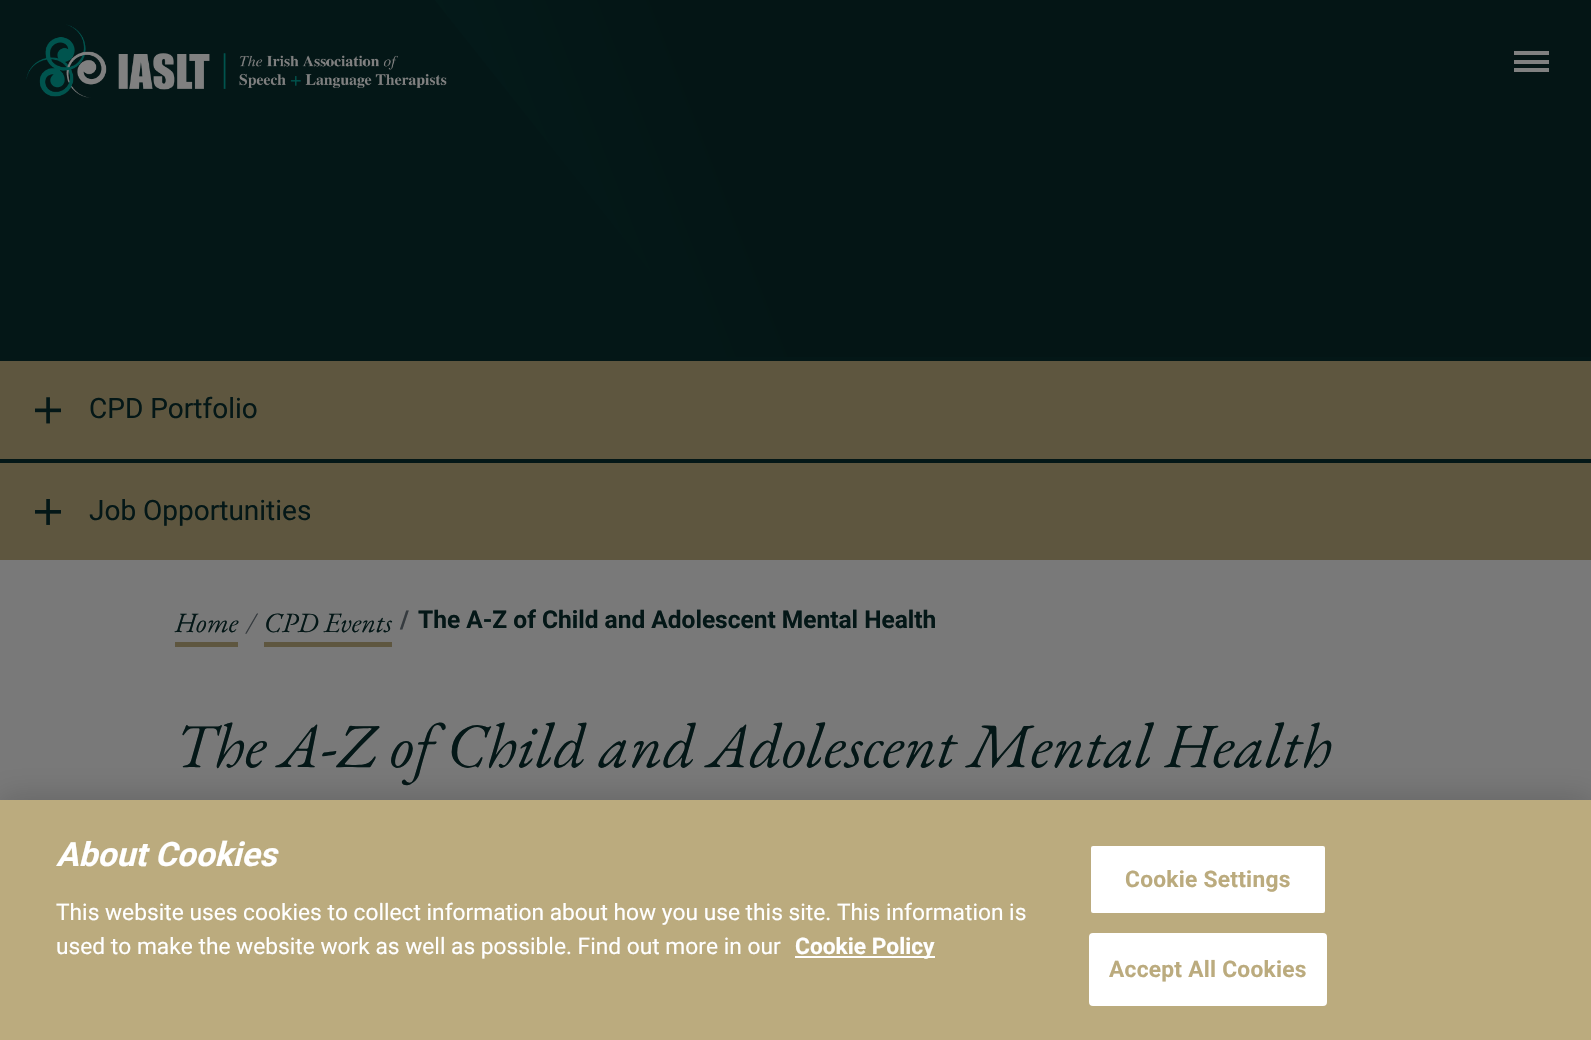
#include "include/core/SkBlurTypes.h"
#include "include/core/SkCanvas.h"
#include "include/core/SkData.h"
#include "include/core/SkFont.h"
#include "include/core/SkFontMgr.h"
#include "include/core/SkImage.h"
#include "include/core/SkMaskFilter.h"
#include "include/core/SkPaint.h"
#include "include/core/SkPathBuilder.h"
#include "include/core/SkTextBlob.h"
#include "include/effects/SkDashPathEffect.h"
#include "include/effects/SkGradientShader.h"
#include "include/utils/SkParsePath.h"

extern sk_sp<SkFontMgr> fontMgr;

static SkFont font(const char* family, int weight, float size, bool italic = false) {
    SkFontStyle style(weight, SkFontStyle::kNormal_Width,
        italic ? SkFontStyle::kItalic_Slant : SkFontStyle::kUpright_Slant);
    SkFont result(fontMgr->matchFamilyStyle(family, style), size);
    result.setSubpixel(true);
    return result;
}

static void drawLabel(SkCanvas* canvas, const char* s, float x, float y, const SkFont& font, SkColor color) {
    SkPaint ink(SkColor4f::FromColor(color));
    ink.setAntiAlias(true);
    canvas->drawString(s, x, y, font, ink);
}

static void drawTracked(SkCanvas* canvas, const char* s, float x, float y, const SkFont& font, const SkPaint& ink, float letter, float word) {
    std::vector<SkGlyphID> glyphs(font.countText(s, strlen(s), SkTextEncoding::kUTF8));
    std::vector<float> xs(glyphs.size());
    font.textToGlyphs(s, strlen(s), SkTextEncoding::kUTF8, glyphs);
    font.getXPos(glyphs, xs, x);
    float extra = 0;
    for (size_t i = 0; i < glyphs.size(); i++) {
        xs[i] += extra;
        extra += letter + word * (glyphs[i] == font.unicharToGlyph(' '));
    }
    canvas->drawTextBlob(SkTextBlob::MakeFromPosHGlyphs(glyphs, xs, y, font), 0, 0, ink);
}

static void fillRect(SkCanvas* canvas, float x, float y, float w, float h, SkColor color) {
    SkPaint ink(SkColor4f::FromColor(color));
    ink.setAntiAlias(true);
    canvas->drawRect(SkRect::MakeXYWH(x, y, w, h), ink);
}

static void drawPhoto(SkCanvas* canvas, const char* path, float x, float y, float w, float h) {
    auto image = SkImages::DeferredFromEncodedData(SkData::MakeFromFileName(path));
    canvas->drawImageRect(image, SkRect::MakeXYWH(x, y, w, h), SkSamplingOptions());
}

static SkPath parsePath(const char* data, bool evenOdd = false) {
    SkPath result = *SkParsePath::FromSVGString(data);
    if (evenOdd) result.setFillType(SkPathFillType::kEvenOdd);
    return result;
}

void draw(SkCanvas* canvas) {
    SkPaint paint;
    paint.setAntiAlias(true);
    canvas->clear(0xFFFFFFFF);
    {
        const SkColor colors[] = {0xFF041515, 0xFF022927};
        const float stops[] = {0.47f, 1};
        const SkPoint ends[] = {{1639, 120}, {-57, 780}};
        paint.setShader(SkGradientShader::MakeLinear(ends, colors, stops, 2, SkTileMode::kClamp));
        paint.setAlpha(255);
    }
    canvas->drawRect(SkRect::MakeXYWH(435, 0, 1156, 357), paint);
    paint.setShader(nullptr);
    paint.setColor(0xFF041717);
    canvas->drawPath(parsePath("M-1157 0H435L880 560H-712Z"), paint);
    drawPhoto(canvas, "assets/img1.png", 26, 24, 421, 74);
    fillRect(canvas, 1514, 51, 35, 4, 0xFF808080);
    fillRect(canvas, 1514, 60, 35, 4, 0xFF808080);
    fillRect(canvas, 1514, 68, 35, 4, 0xFF808080);
    fillRect(canvas, 0, 361, 1591, 199, 0xFF5E563F);
    fillRect(canvas, 718, 357, 873, 4, 0xFF041717);
    drawPhoto(canvas, "assets/img2.png", 35, 397, 26, 27);
    SkFont font1 = font("Roboto", 400, 28);
    drawLabel(canvas, "CPD Portfolio", 89, 418, font1, 0xFF041717);
    fillRect(canvas, 0, 459, 1591, 4, 0xFF041717);
    drawPhoto(canvas, "assets/img3.png", 35, 499, 26, 26);
    drawLabel(canvas, "Job Opportunities", 89, 520, font1, 0xFF041717);
    fillRect(canvas, 0, 560, 1591, 74, 0xFF797979);
    SkFont font2 = font("EB Garamond", 400, 28, true);
    drawLabel(canvas, "Home", 175, 632, font2, 0xFF041717);
    fillRect(canvas, 0, 634, 1591, 166, 0xFF797979);
    fillRect(canvas, 175, 642, 63, 5, 0xFF5E563F);
    drawLabel(canvas, "/", 247, 632, font2, 0xFF363B3F);
    drawLabel(canvas, "CPD Events", 264, 632, font2, 0xFF041717);
    fillRect(canvas, 264, 642, 128, 5, 0xFF5E563F);
    SkFont font3 = font("Roboto", 700, 24.5f);
    drawLabel(canvas, "/", 400, 628, font3, 0xFF363B3F);
    drawLabel(canvas, "The A-Z of Child and Adolescent Mental Health", 418, 628, font3, 0xFF041717);
    SkFont font4 = font("EB Garamond", 400, 63, true);
    drawLabel(canvas, "The A-Z of Child and Adolescent Mental Health", 175, 767, font4, 0xFF041717);
    paint.setColor(0x33000000);
    paint.setMaskFilter(SkMaskFilter::MakeBlur(kNormal_SkBlurStyle, 16));
    canvas->drawRect(SkRect::MakeXYWH(0, 800, 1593, 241), paint);
    paint.setMaskFilter(nullptr);
    fillRect(canvas, 0, 800, 1591, 240, 0xFFBBAB7E);
    SkFont font5 = font("Roboto", 700, 33.5f, true);
    drawLabel(canvas, "About Cookies", 56, 866, font5, 0xFFFFFFFF);
    SkFont font6 = font("Roboto", 400, 22.75f);
    drawLabel(canvas, "This website uses cookies to collect information about how you use this site. This information is", 56, 920, font6, 0xFFFFFFFF);
    drawLabel(canvas, "used to make the website work as well as possible. Find out more in our", 56, 954, font6, 0xFFFFFFFF);
    fillRect(canvas, 795, 956, 140, 2, 0xFFFFFFFF);
    SkFont font7 = font("Roboto", 700, 22.75f);
    drawLabel(canvas, "Cookie Policy", 795, 954, font7, 0xFFFFFFFF);
    paint.setColor(0xFFFFFFFF);
    canvas->drawRoundRect(SkRect::MakeXYWH(1090, 845, 236, 69), 3, 3, paint);
    paint.setStroke(true);
    paint.setStrokeWidth(2);
    paint.setColor(0xFFBBAB7E);
    canvas->drawRoundRect(SkRect::MakeXYWH(1090, 845, 236, 69), 3, 3, paint);
    paint.setStroke(false);
    drawTracked(canvas, "Cookie Settings", 1125, 887, font7, paint, 0.25f, 0);
    paint.setColor(0xFFFFFFFF);
    canvas->drawRoundRect(SkRect::MakeXYWH(1090, 934, 236, 71), 3, 3, paint);
    paint.setStroke(true);
    canvas->drawRoundRect(SkRect::MakeXYWH(1090, 934, 236, 71), 3, 3, paint);
    paint.setStroke(false);
    paint.setColor(0xFFBBAB7E);
    drawTracked(canvas, "Accept All Cookies", 1109, 977, font7, paint, 0.25f, 0);
}
